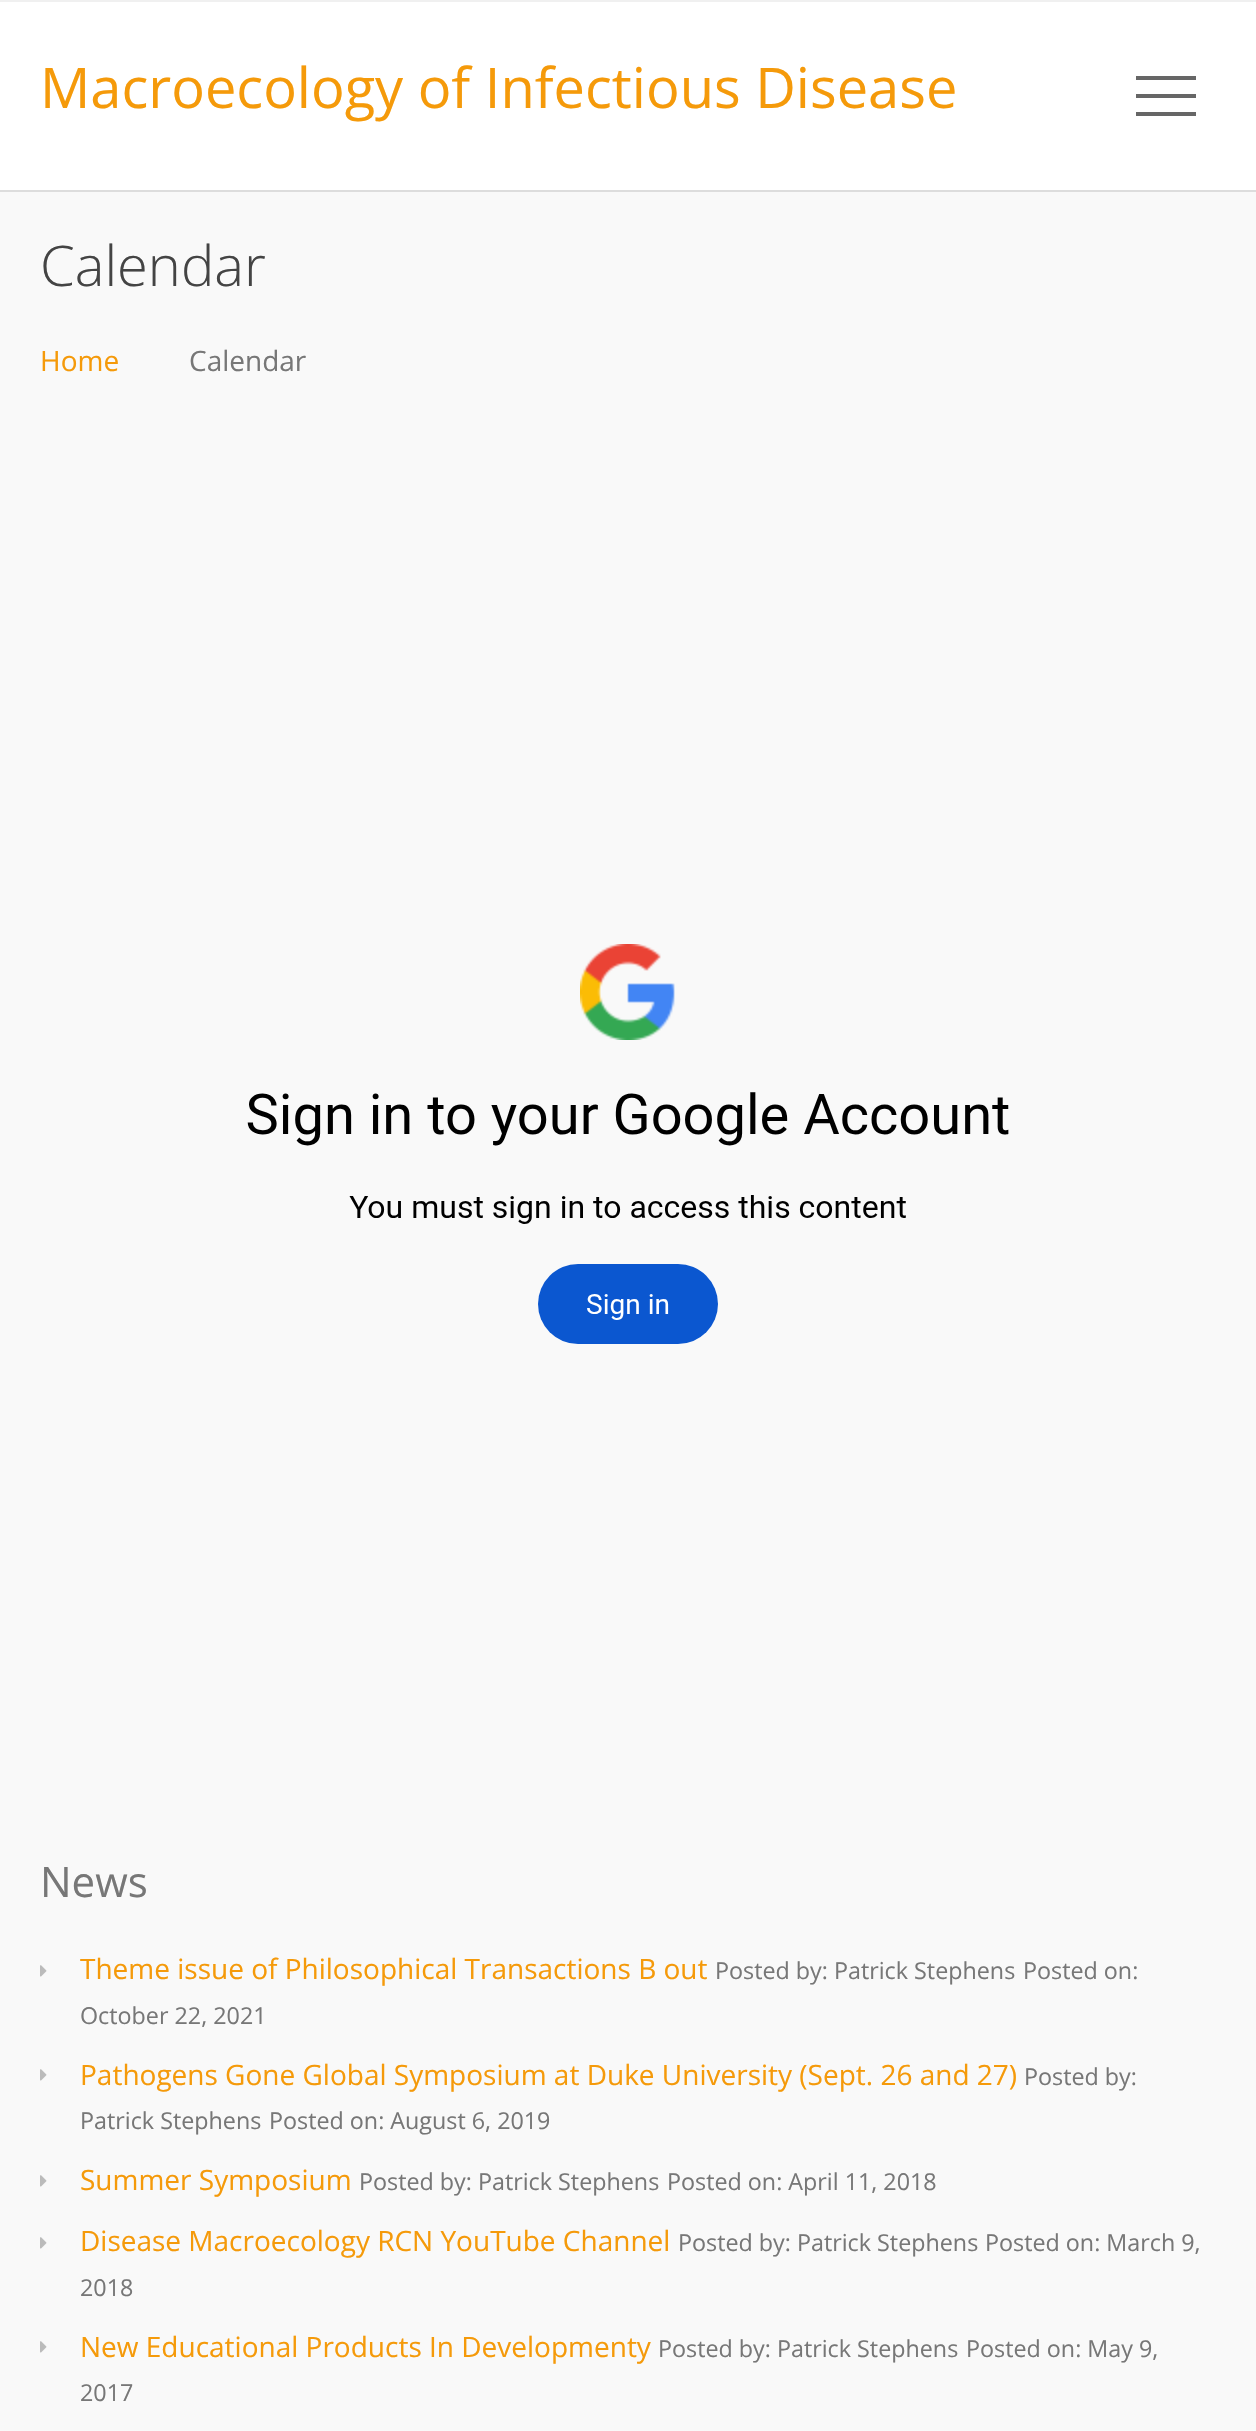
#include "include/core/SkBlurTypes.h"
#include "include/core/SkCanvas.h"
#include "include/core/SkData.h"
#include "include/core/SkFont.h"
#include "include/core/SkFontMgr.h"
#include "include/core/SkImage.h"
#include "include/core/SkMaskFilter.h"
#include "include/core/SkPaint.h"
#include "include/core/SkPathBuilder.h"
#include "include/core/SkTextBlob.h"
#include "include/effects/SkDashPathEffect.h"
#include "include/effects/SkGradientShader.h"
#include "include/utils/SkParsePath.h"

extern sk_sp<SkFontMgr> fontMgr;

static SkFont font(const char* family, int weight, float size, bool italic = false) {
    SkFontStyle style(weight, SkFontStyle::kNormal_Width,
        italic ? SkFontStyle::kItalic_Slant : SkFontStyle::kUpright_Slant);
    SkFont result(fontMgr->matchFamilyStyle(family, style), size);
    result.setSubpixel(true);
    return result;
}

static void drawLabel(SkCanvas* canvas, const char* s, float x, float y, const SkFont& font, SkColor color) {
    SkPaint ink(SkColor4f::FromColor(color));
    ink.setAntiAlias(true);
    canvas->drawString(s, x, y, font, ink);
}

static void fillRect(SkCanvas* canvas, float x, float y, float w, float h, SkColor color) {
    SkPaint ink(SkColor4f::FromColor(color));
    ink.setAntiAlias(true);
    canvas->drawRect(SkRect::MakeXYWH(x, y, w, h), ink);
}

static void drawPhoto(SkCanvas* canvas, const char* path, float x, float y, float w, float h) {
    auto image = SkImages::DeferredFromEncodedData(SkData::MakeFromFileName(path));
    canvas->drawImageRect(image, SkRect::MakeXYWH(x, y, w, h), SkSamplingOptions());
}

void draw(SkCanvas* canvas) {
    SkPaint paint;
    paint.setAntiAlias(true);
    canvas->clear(0xFFF9F9F9);
    fillRect(canvas, 0, 0, 1256, 2, 0xFFF0F0F0);
    fillRect(canvas, 0, 2, 1256, 188, 0xFFFFFFFF);
    fillRect(canvas, 0, 190, 1256, 2, 0xFFDDDDDD);
    SkFont font1 = font("Open Sans", 400, 56);
    drawLabel(canvas, "Macroecology of Infectious Disease", 40, 108, font1, 0xFFF59A0A);
    fillRect(canvas, 1136, 76, 60, 4, 0xFF666666);
    fillRect(canvas, 1136, 112, 60, 4, 0xFF666666);
    fillRect(canvas, 1136, 94, 60, 4, 0xFF666666);
    SkFont font2 = font("Open Sans", 300, 56);
    drawLabel(canvas, "Calendar", 40, 286, font2, 0xFF444444);
    SkFont font3 = font("Open Sans", 400, 28);
    drawLabel(canvas, "Home", 40, 371, font3, 0xFFF59A0A);
    drawLabel(canvas, "Calendar", 189, 371, font3, 0xFF777777);
    drawPhoto(canvas, "assets/img1.png", 247, 944, 762, 400);
    SkFont font4 = font("Open Sans", 400, 42);
    drawLabel(canvas, "News", 40, 1897, font4, 0xFF777777);
    drawPhoto(canvas, "assets/img2.png", 40, 1965, 7, 12);
    drawLabel(canvas, "Theme issue of Philosophical Transactions B out", 80, 1979, font3, 0xFFF59A0A);
    SkFont font5 = font("Open Sans", 400, 23.3f);
    drawLabel(canvas, "Posted by: Patrick Stephens", 715, 1979, font5, 0xFF777777);
    drawLabel(canvas, "Posted on:", 1023, 1979, font5, 0xFF777777);
    drawLabel(canvas, "October 22, 2021", 80, 2024, font5, 0xFF777777);
    drawPhoto(canvas, "assets/img2.png", 40, 2069, 7, 12);
    drawLabel(canvas, "Pathogens Gone Global Symposium at Duke University (Sept. 26 and 27)", 80, 2085, font3, 0xFFF59A0A);
    drawLabel(canvas, "Posted by:", 1024, 2085, font5, 0xFF777777);
    drawLabel(canvas, "Patrick Stephens", 80, 2129, font5, 0xFF777777);
    drawLabel(canvas, "Posted on: August 6, 2019", 269, 2129, font5, 0xFF777777);
    drawPhoto(canvas, "assets/img2.png", 40, 2175, 7, 12);
    drawLabel(canvas, "Summer Symposium", 80, 2190, font3, 0xFFF59A0A);
    drawLabel(canvas, "Posted by: Patrick Stephens", 359, 2190, font5, 0xFF777777);
    drawLabel(canvas, "Posted on: April 11, 2018", 667, 2190, font5, 0xFF777777);
    drawPhoto(canvas, "assets/img2.png", 40, 2237, 7, 12);
    drawLabel(canvas, "Disease Macroecology RCN YouTube Channel", 80, 2251, font3, 0xFFF59A0A);
    drawLabel(canvas, "Posted by: Patrick Stephens", 678, 2251, font5, 0xFF777777);
    drawLabel(canvas, "Posted on: March 9,", 985, 2251, font5, 0xFF777777);
    drawLabel(canvas, "2018", 80, 2296, font5, 0xFF777777);
    drawPhoto(canvas, "assets/img2.png", 40, 2341, 7, 12);
    drawLabel(canvas, "New Educational Products In Developmenty", 80, 2357, font3, 0xFFF59A0A);
    drawLabel(canvas, "Posted by: Patrick Stephens", 658, 2357, font5, 0xFF777777);
    drawLabel(canvas, "Posted on: May 9,", 966, 2357, font5, 0xFF777777);
    drawLabel(canvas, "2017", 80, 2401, font5, 0xFF777777);
}
